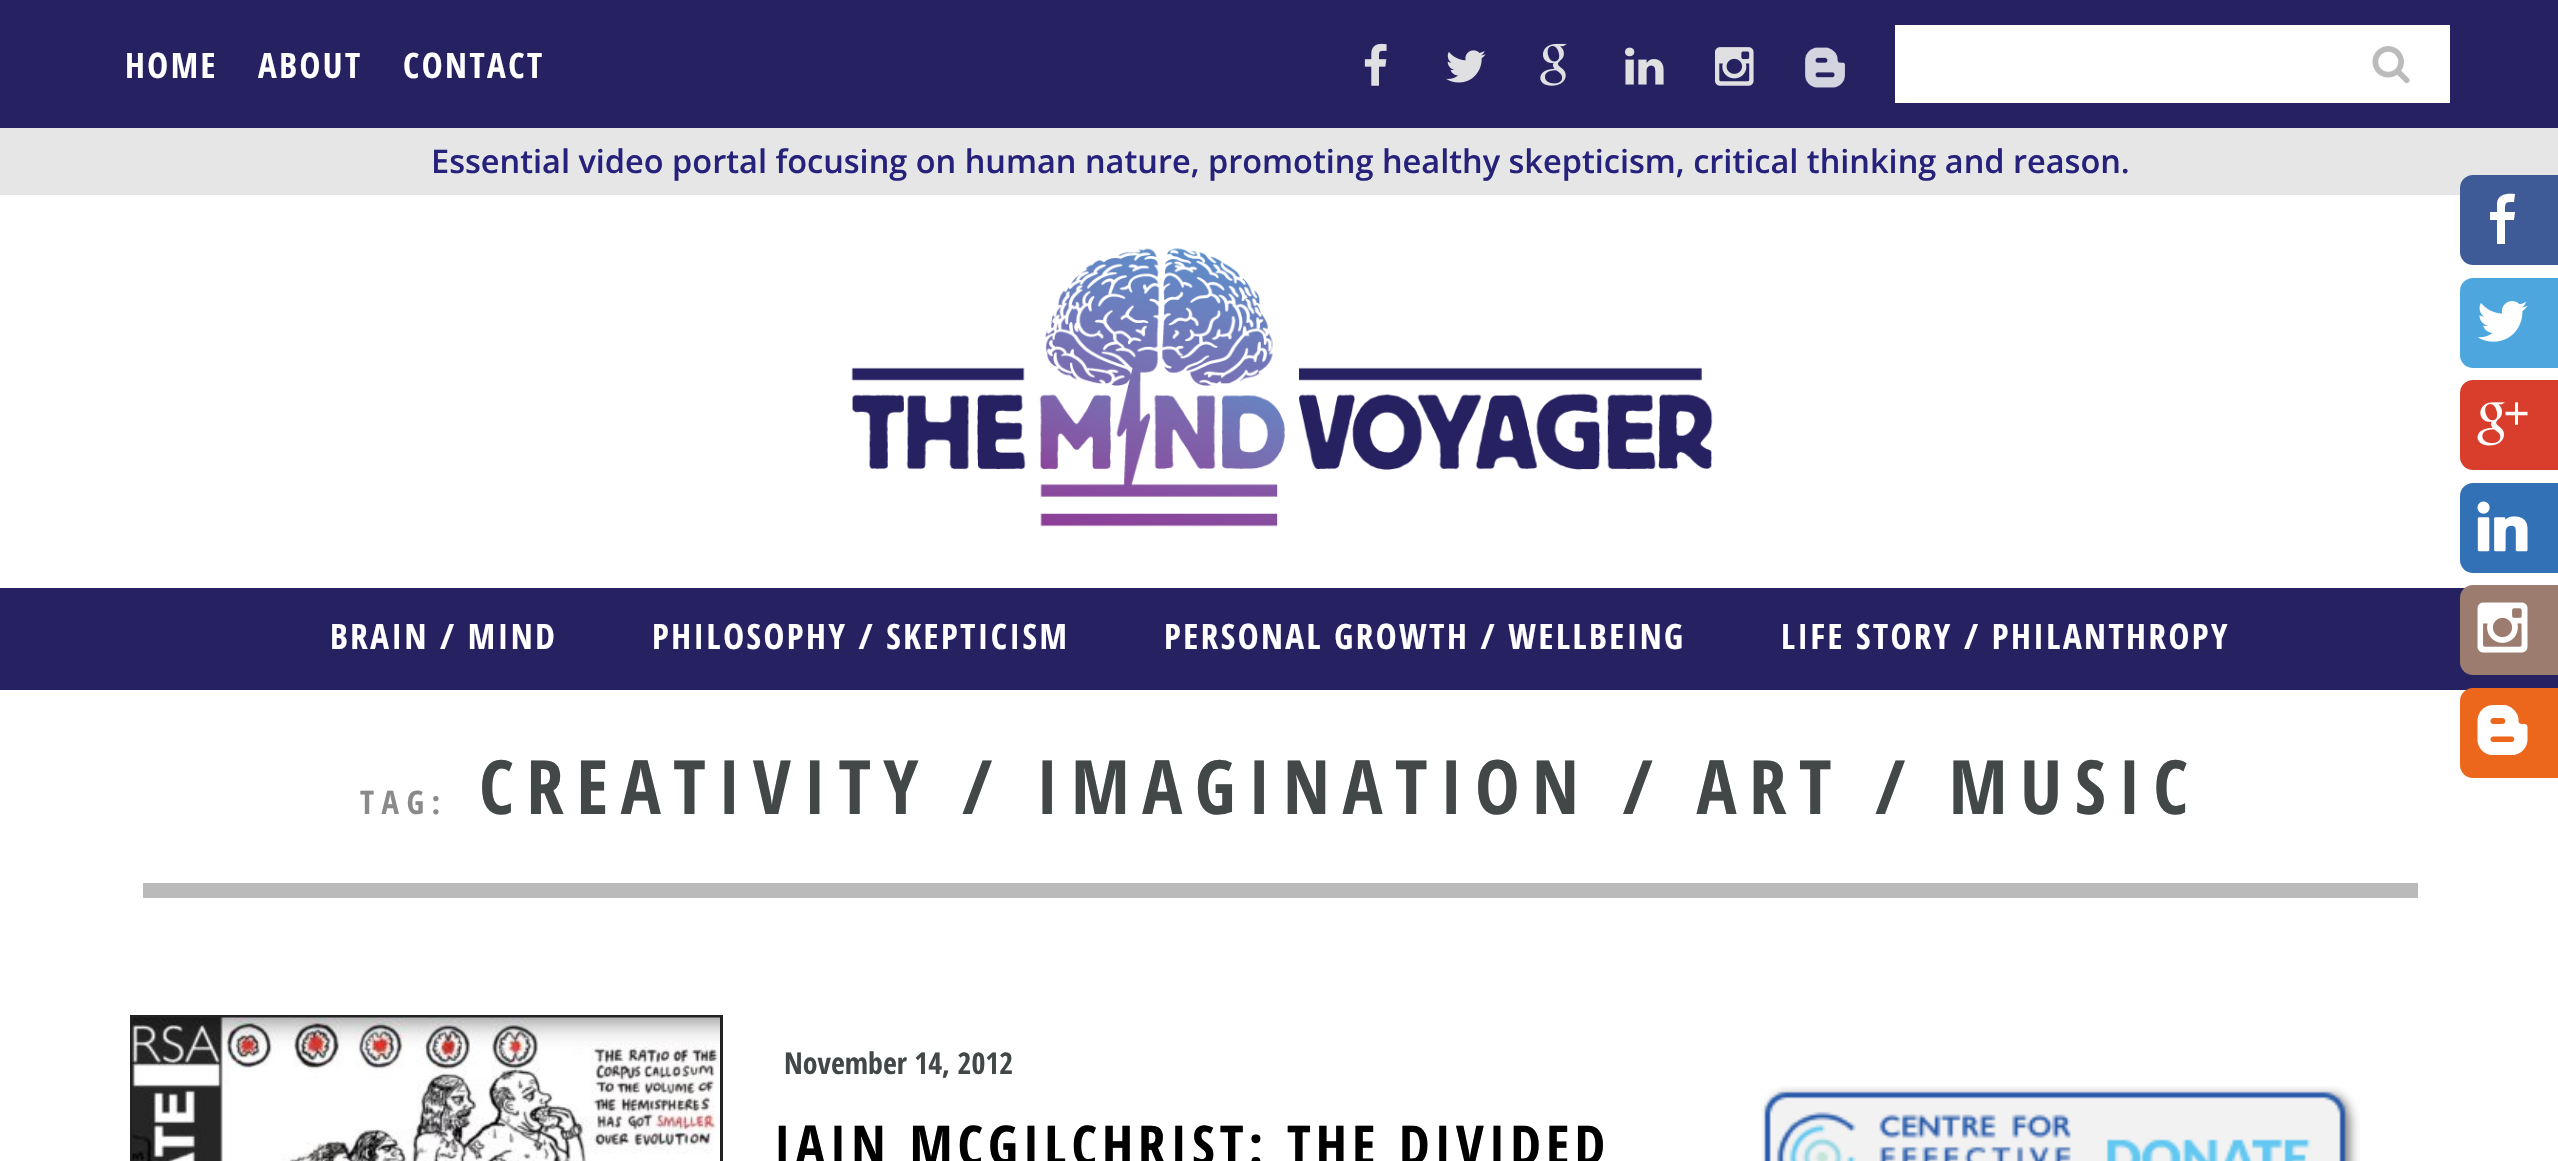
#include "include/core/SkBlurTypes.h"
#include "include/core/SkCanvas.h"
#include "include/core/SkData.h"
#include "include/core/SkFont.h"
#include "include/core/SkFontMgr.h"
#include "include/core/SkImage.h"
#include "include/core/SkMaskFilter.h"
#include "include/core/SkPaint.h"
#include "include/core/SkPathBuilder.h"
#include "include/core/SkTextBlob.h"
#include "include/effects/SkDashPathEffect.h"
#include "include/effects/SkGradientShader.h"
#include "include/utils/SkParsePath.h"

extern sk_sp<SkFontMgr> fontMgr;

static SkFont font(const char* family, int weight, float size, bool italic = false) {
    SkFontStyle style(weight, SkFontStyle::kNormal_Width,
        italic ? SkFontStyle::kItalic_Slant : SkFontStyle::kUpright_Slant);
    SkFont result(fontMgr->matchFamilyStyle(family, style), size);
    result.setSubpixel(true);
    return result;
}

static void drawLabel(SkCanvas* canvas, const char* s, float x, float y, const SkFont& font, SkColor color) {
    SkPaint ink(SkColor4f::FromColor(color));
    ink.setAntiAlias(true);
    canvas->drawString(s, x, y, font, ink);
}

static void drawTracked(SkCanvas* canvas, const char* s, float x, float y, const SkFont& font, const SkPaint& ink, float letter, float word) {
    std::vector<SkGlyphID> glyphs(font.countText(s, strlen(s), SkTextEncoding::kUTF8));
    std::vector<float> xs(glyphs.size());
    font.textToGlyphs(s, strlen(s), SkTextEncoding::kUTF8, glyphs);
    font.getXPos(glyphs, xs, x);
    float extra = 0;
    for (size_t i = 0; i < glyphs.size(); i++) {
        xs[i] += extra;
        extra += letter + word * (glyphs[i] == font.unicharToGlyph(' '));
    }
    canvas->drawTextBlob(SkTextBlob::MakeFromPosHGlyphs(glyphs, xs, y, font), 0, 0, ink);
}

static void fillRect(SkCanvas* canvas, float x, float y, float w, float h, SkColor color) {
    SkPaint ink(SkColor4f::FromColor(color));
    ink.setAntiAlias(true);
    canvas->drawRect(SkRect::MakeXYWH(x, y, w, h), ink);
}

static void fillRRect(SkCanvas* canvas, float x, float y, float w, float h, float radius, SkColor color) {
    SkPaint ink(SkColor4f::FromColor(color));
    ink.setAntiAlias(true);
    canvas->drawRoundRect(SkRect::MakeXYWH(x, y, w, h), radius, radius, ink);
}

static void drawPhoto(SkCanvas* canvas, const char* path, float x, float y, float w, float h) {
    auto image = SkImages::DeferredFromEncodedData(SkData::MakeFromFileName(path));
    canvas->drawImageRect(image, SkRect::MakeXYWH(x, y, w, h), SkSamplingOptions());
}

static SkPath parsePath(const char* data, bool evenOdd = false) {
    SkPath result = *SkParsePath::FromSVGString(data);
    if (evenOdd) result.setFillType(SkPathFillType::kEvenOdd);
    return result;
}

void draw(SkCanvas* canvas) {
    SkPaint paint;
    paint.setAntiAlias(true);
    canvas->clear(0xFFFFFFFF);
    fillRect(canvas, 0, 0, 2558, 128, 0xFF262262);
    SkFont font1 = font("Open Sans Condensed", 700, 35);
    paint.setColor(0xFFFFFFFF);
    drawTracked(canvas, "HOME", 125, 78, font1, paint, 2.5f, 0);
    drawTracked(canvas, "ABOUT", 258, 78, font1, paint, 2.5f, 0);
    drawTracked(canvas, "CONTACT", 403, 78, font1, paint, 2.5f, 0);
    drawPhoto(canvas, "assets/img1.png", 1364, 43, 23, 43);
    drawPhoto(canvas, "assets/img2.png", 1446, 50, 40, 33);
    drawPhoto(canvas, "assets/img3.png", 1540, 43, 27, 43);
    drawPhoto(canvas, "assets/img4.png", 1625, 47, 39, 38);
    drawPhoto(canvas, "assets/img5.png", 1715, 47, 39, 39);
    drawPhoto(canvas, "assets/img6.png", 1805, 47, 40, 41);
    fillRect(canvas, 1895, 25, 555, 78, 0xFFFFFFFF);
    drawPhoto(canvas, "assets/img7.png", 2372, 46, 38, 38);
    fillRect(canvas, 0, 128, 2558, 67, 0xFFE6E6E6);
    SkFont font2 = font("Open Sans", 600, 32.5f);
    drawLabel(canvas, "Essential video portal focusing on human nature, promoting healthy skepticism, critical thinking and reason.", 431, 173, font2, 0xFF26227B);
    drawPhoto(canvas, "assets/img8.png", 851, 248, 862, 279);
    fillRect(canvas, 0, 588, 2558, 102, 0xFF262262);
    drawTracked(canvas, "BRAIN / MIND", 330, 649, font1, paint, 2.5f, 0);
    drawTracked(canvas, "PHILOSOPHY / SKEPTICISM", 652, 649, font1, paint, 2.5f, 0);
    drawTracked(canvas, "PERSONAL GROWTH / WELLBEING", 1164, 649, font1, paint, 2.5f, 0);
    drawTracked(canvas, "LIFE STORY / PHILANTHROPY", 1781, 649, font1, paint, 2.5f, 0);
    fillRect(canvas, 143, 883, 2275, 15, 0xFFBABABA);
    SkFont font3 = font("Open Sans Condensed", 700, 32.5f);
    paint.setColor(0xFF8A8A8A);
    drawTracked(canvas, "TAG:", 360, 814, font3, paint, 7.5f, 0);
    SkFont font4 = font("Open Sans Condensed", 700, 75);
    paint.setColor(0xFF424748);
    drawTracked(canvas, "CREATIVITY / IMAGINATION / ART / MUSIC", 479, 814, font4, paint, 12.5f, 0);
    paint.setStroke(true);
    paint.setStrokeWidth(3);
    paint.setColor(0xFF222222);
    canvas->drawRect(SkRect::MakeXYWH(131.5f, 1016.5f, 590, 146), paint);
    drawPhoto(canvas, "assets/img9.png", 132, 1017, 588, 144);
    SkFont font5 = font("Open Sans Condensed", 700, 30);
    drawLabel(canvas, "November 14, 2012", 784, 1074, font5, 0xFF424748);
    SkFont font6 = font("Open Sans Condensed", 700, 55);
    paint.setStroke(false);
    paint.setColor(0xFF000000);
    drawTracked(canvas, "IAIN MCGILCHRIST: THE DIVIDED", 774, 1165, font6, paint, 5, 0);
    drawPhoto(canvas, "assets/img10.png", 1761, 1086, 599, 75);
    fillRRect(canvas, 2460, 175, 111, 90, 13, 0xFF3E5B98);
    paint.setColor(0xFFFFFFFF);
    canvas->drawPath(parsePath("M2490 220V212H2497V203C2498 194 2507 193 2515 194L2514 202C2505 202 2505 202 2505 212H2515L2514 220H2505V244H2497V220Z"), paint);
    fillRRect(canvas, 2460, 278, 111, 90, 13, 0xFF4DA7DE);
    drawPhoto(canvas, "assets/img11.png", 2477, 301, 51, 41);
    fillRRect(canvas, 2460, 380, 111, 90, 13, 0xFFD93E2D);
    drawPhoto(canvas, "assets/img12.png", 2477, 402, 51, 44);
    fillRRect(canvas, 2460, 483, 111, 90, 13, 0xFF3371B7);
    drawPhoto(canvas, "assets/img13.png", 2477, 501, 51, 51);
    fillRRect(canvas, 2460, 585, 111, 90, 13, 0xFF9C7C6E);
    drawPhoto(canvas, "assets/img14.png", 2477, 602, 51, 51);
    fillRRect(canvas, 2460, 688, 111, 90, 13, 0xFFEC661C);
    drawPhoto(canvas, "assets/img15.png", 2477, 705, 51, 50);
}
